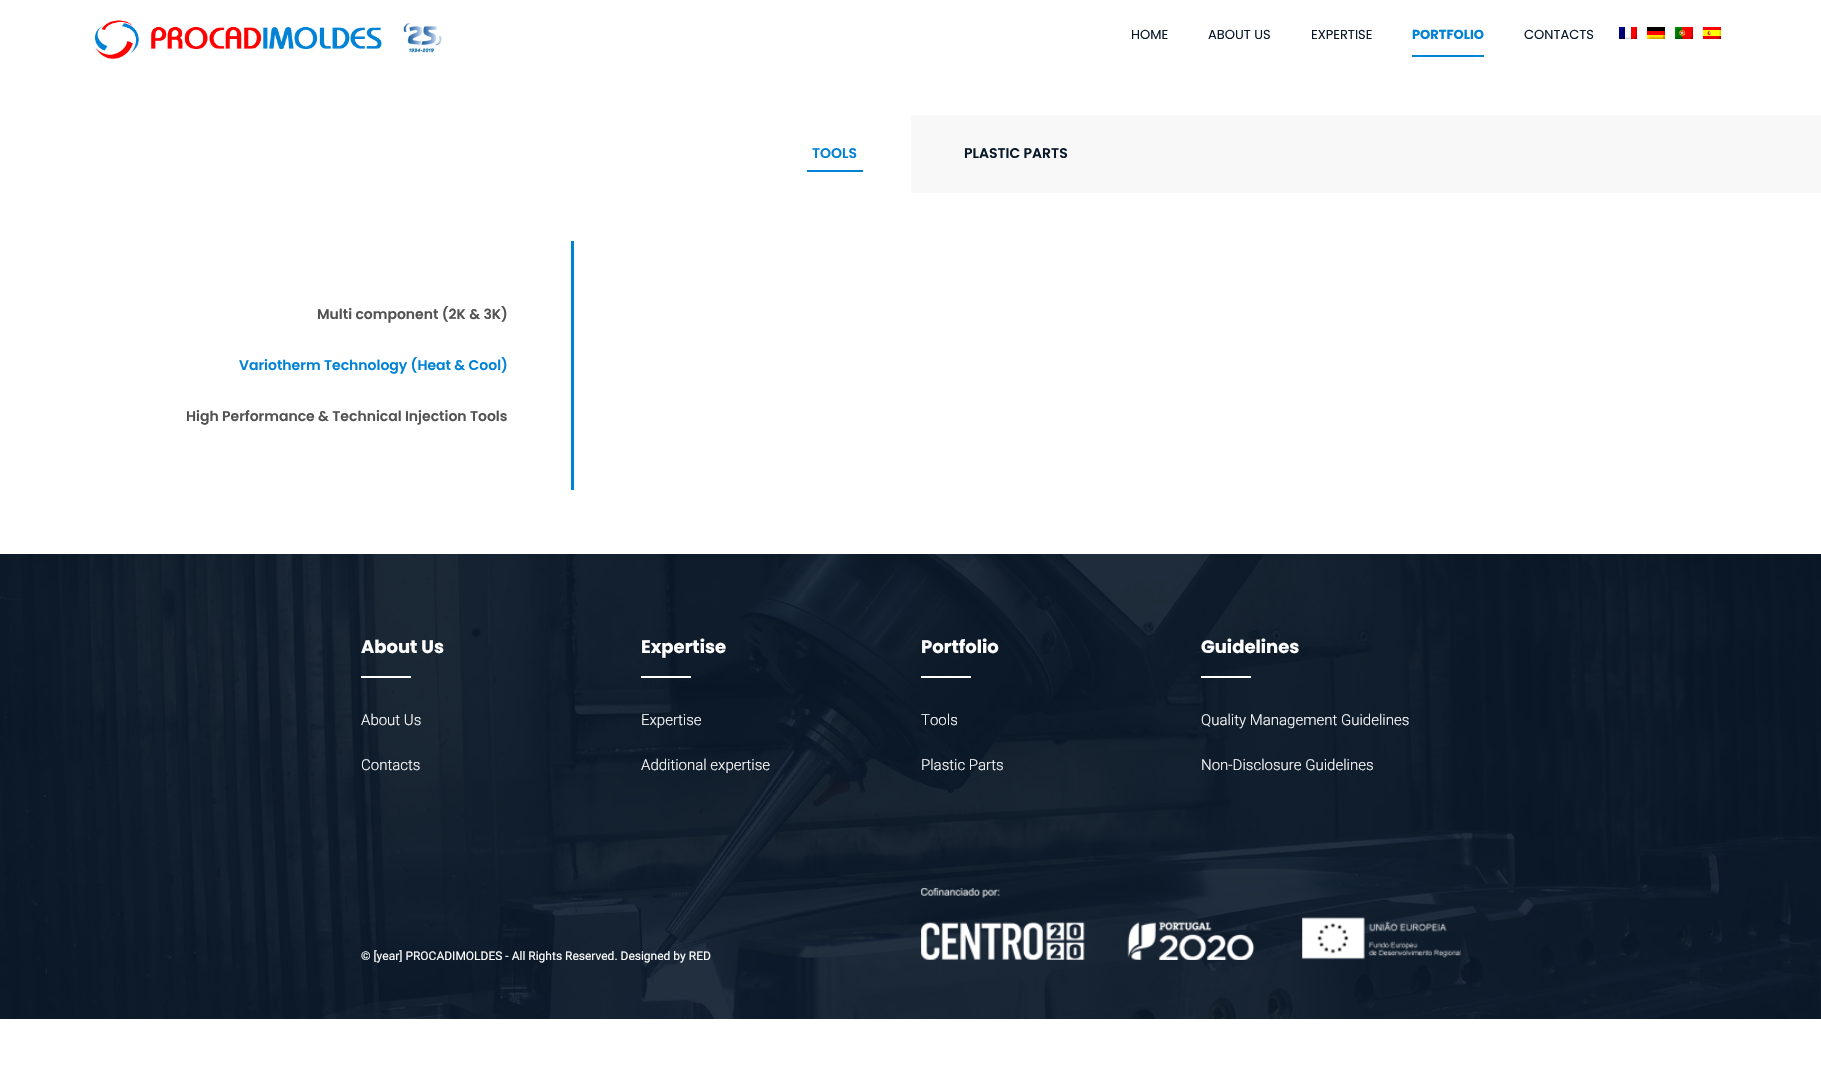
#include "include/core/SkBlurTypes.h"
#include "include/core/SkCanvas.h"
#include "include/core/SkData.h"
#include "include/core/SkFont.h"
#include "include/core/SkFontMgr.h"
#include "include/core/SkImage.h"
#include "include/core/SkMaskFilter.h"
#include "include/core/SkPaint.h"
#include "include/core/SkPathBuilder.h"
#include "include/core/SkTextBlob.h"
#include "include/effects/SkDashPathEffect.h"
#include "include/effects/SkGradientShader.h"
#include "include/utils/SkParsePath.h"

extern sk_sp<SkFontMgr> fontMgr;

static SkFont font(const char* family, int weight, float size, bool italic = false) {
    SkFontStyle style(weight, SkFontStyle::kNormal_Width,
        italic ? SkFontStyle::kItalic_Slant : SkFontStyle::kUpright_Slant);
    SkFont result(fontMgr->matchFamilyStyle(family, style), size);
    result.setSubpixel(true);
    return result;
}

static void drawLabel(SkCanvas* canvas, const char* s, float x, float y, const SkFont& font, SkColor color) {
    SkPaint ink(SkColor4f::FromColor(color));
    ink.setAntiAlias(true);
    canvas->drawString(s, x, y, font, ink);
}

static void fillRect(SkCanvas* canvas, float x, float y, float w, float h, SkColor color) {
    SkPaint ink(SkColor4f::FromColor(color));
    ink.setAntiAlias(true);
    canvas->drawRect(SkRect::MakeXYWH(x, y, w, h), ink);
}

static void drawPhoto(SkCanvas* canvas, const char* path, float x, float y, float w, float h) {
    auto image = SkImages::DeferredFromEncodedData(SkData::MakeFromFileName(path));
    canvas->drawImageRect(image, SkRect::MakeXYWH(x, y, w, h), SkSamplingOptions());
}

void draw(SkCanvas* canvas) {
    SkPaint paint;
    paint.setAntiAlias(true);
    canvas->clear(0xFFFFFFFF);
    drawPhoto(canvas, "assets/img1.png", 95, 20, 347, 39);
    SkFont font1 = font("Poppins", 400, 13);
    drawLabel(canvas, "HOME", 1131, 39, font1, 0xFF091829);
    drawLabel(canvas, "ABOUT US", 1208, 39, font1, 0xFF091829);
    drawLabel(canvas, "EXPERTISE", 1311, 39, font1, 0xFF091829);
    fillRect(canvas, 1412, 55, 72, 2, 0xFF0082D6);
    SkFont font2 = font("Poppins", 700, 13);
    drawLabel(canvas, "PORTFOLIO", 1412, 39, font2, 0xFF0082D6);
    drawLabel(canvas, "CONTACTS", 1524, 39, font1, 0xFF091829);
    drawPhoto(canvas, "assets/img2.png", 1619, 27, 18, 12);
    drawPhoto(canvas, "assets/img3.png", 1647, 27, 18, 12);
    drawPhoto(canvas, "assets/img4.png", 1675, 27, 18, 12);
    drawPhoto(canvas, "assets/img5.png", 1703, 27, 18, 12);
    fillRect(canvas, 911, 115, 910, 78, 0xFFF8F8F8);
    fillRect(canvas, 807, 170, 56, 2, 0xFF0082D6);
    SkFont font3 = font("Poppins", 600, 14);
    drawLabel(canvas, "TOOLS", 812, 158, font3, 0xFF0082D6);
    drawLabel(canvas, "PLASTIC PARTS", 964, 158, font3, 0xFF091829);
    fillRect(canvas, 571, 241, 3, 249, 0xFF0082D6);
    drawLabel(canvas, "Multi component (2K & 3K)", 317, 319, font3, 0xFF525252);
    drawLabel(canvas, "Variotherm Technology (Heat & Cool)", 239, 370, font3, 0xFF0082D6);
    drawLabel(canvas, "High Performance & Technical Injection Tools", 186, 421, font3, 0xFF525252);
    drawPhoto(canvas, "assets/img6.png", 0, 554, 1821, 465);
    SkFont font4 = font("Poppins", 700, 18);
    drawLabel(canvas, "About Us", 361, 653, font4, 0xFFFFFFFF);
    fillRect(canvas, 361, 676, 50, 2, 0xFFFFFFFF);
    SkFont font5 = font("Roboto", 300, 15);
    drawLabel(canvas, "About Us", 361, 725, font5, 0xFFFFFFFF);
    drawLabel(canvas, "Contacts", 361, 770, font5, 0xFFFFFFFF);
    drawLabel(canvas, "Expertise", 641, 653, font4, 0xFFFFFFFF);
    fillRect(canvas, 641, 676, 50, 2, 0xFFFFFFFF);
    drawLabel(canvas, "Expertise", 641, 725, font5, 0xFFFFFFFF);
    drawLabel(canvas, "Additional expertise", 641, 770, font5, 0xFFFFFFFF);
    drawLabel(canvas, "Portfolio", 921, 653, font4, 0xFFFFFFFF);
    fillRect(canvas, 921, 676, 50, 2, 0xFFFFFFFF);
    drawLabel(canvas, "Tools", 921, 725, font5, 0xFFFFFFFF);
    drawLabel(canvas, "Plastic Parts", 921, 770, font5, 0xFFFFFFFF);
    drawLabel(canvas, "Guidelines", 1201, 653, font4, 0xFFFFFFFF);
    fillRect(canvas, 1201, 676, 50, 2, 0xFFFFFFFF);
    drawLabel(canvas, "Quality Management Guidelines", 1201, 725, font5, 0xFFFFFFFF);
    drawLabel(canvas, "Non-Disclosure Guidelines", 1201, 770, font5, 0xFFFFFFFF);
    SkFont font6 = font("Roboto", 400, 12);
    drawLabel(canvas, "© [year] PROCADIMOLDES - All Rights Reserved. Designed by RED", 361, 960, font6, 0xFFFFFFFF);
    drawPhoto(canvas, "assets/img7.png", 921, 888, 540, 72);
}
